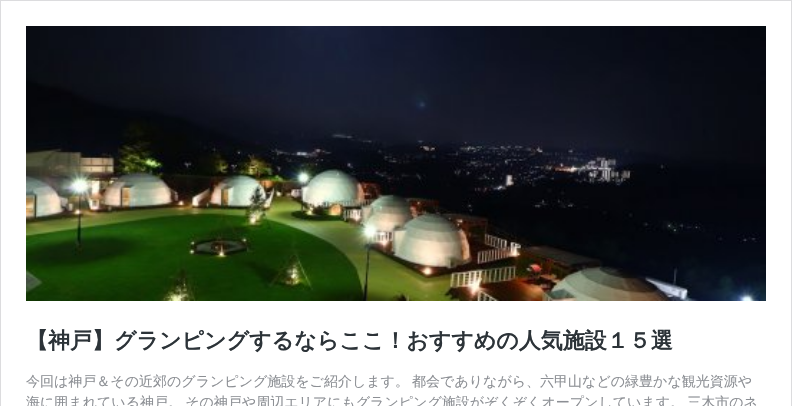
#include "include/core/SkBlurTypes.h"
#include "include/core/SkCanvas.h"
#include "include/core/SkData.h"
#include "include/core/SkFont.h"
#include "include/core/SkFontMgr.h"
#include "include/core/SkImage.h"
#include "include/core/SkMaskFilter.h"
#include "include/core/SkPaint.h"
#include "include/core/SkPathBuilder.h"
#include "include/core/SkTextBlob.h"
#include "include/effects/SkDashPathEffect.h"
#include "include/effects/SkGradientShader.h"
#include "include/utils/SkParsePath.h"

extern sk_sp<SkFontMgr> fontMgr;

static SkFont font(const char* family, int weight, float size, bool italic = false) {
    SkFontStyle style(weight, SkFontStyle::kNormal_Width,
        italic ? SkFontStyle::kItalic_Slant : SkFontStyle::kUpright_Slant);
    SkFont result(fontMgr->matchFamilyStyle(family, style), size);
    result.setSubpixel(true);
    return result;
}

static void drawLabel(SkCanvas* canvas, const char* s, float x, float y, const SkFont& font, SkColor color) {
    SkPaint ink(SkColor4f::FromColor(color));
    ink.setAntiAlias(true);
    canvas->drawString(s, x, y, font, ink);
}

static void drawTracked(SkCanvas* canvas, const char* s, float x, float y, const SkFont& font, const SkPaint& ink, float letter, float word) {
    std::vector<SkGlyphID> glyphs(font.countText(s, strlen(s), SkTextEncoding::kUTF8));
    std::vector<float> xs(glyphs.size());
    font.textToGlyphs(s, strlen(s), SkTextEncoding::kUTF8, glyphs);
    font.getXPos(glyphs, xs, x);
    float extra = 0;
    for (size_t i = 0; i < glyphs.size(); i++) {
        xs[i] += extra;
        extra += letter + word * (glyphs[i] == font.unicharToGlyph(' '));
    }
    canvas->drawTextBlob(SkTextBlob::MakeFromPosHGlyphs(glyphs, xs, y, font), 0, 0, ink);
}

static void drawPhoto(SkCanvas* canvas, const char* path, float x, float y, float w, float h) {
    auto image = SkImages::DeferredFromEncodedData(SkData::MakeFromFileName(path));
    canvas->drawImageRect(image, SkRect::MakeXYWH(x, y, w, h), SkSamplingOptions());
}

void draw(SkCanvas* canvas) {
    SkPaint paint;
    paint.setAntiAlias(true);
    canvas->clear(0xFFFFFFFF);
    paint.setStroke(true);
    paint.setStrokeWidth(1);
    paint.setColor(0xFFDCDCDE);
    canvas->drawRect(SkRect::MakeXYWH(0.5f, 0.5f, 791, 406), paint);
    drawPhoto(canvas, "assets/img1.png", 26, 26, 740, 275);
    SkFont font1 = font("WenQuanYi Zen Hei", 700, 22);
    drawLabel(canvas, "【神戸】グランピングするならここ！おすすめの人気施設１５選", 26, 348, font1, 0xFF2C3338);
    SkFont font2 = font("WenQuanYi Zen Hei", 500, 14);
    paint.setStroke(false);
    paint.setColor(0xFF8C8F94);
    drawTracked(canvas, "今回は神戸＆その近郊のグランピング施設をご紹介します。 都会でありながら、六甲山などの緑豊かな観光資源や", 26, 386, font2, paint, 0, -1);
    drawTracked(canvas, "海に囲まれている神戸。 その神戸や周辺エリアにもグランピング施設がぞくぞくオープンしています。 三木市のネ", 26, 407, font2, paint, 0, -1);
}
